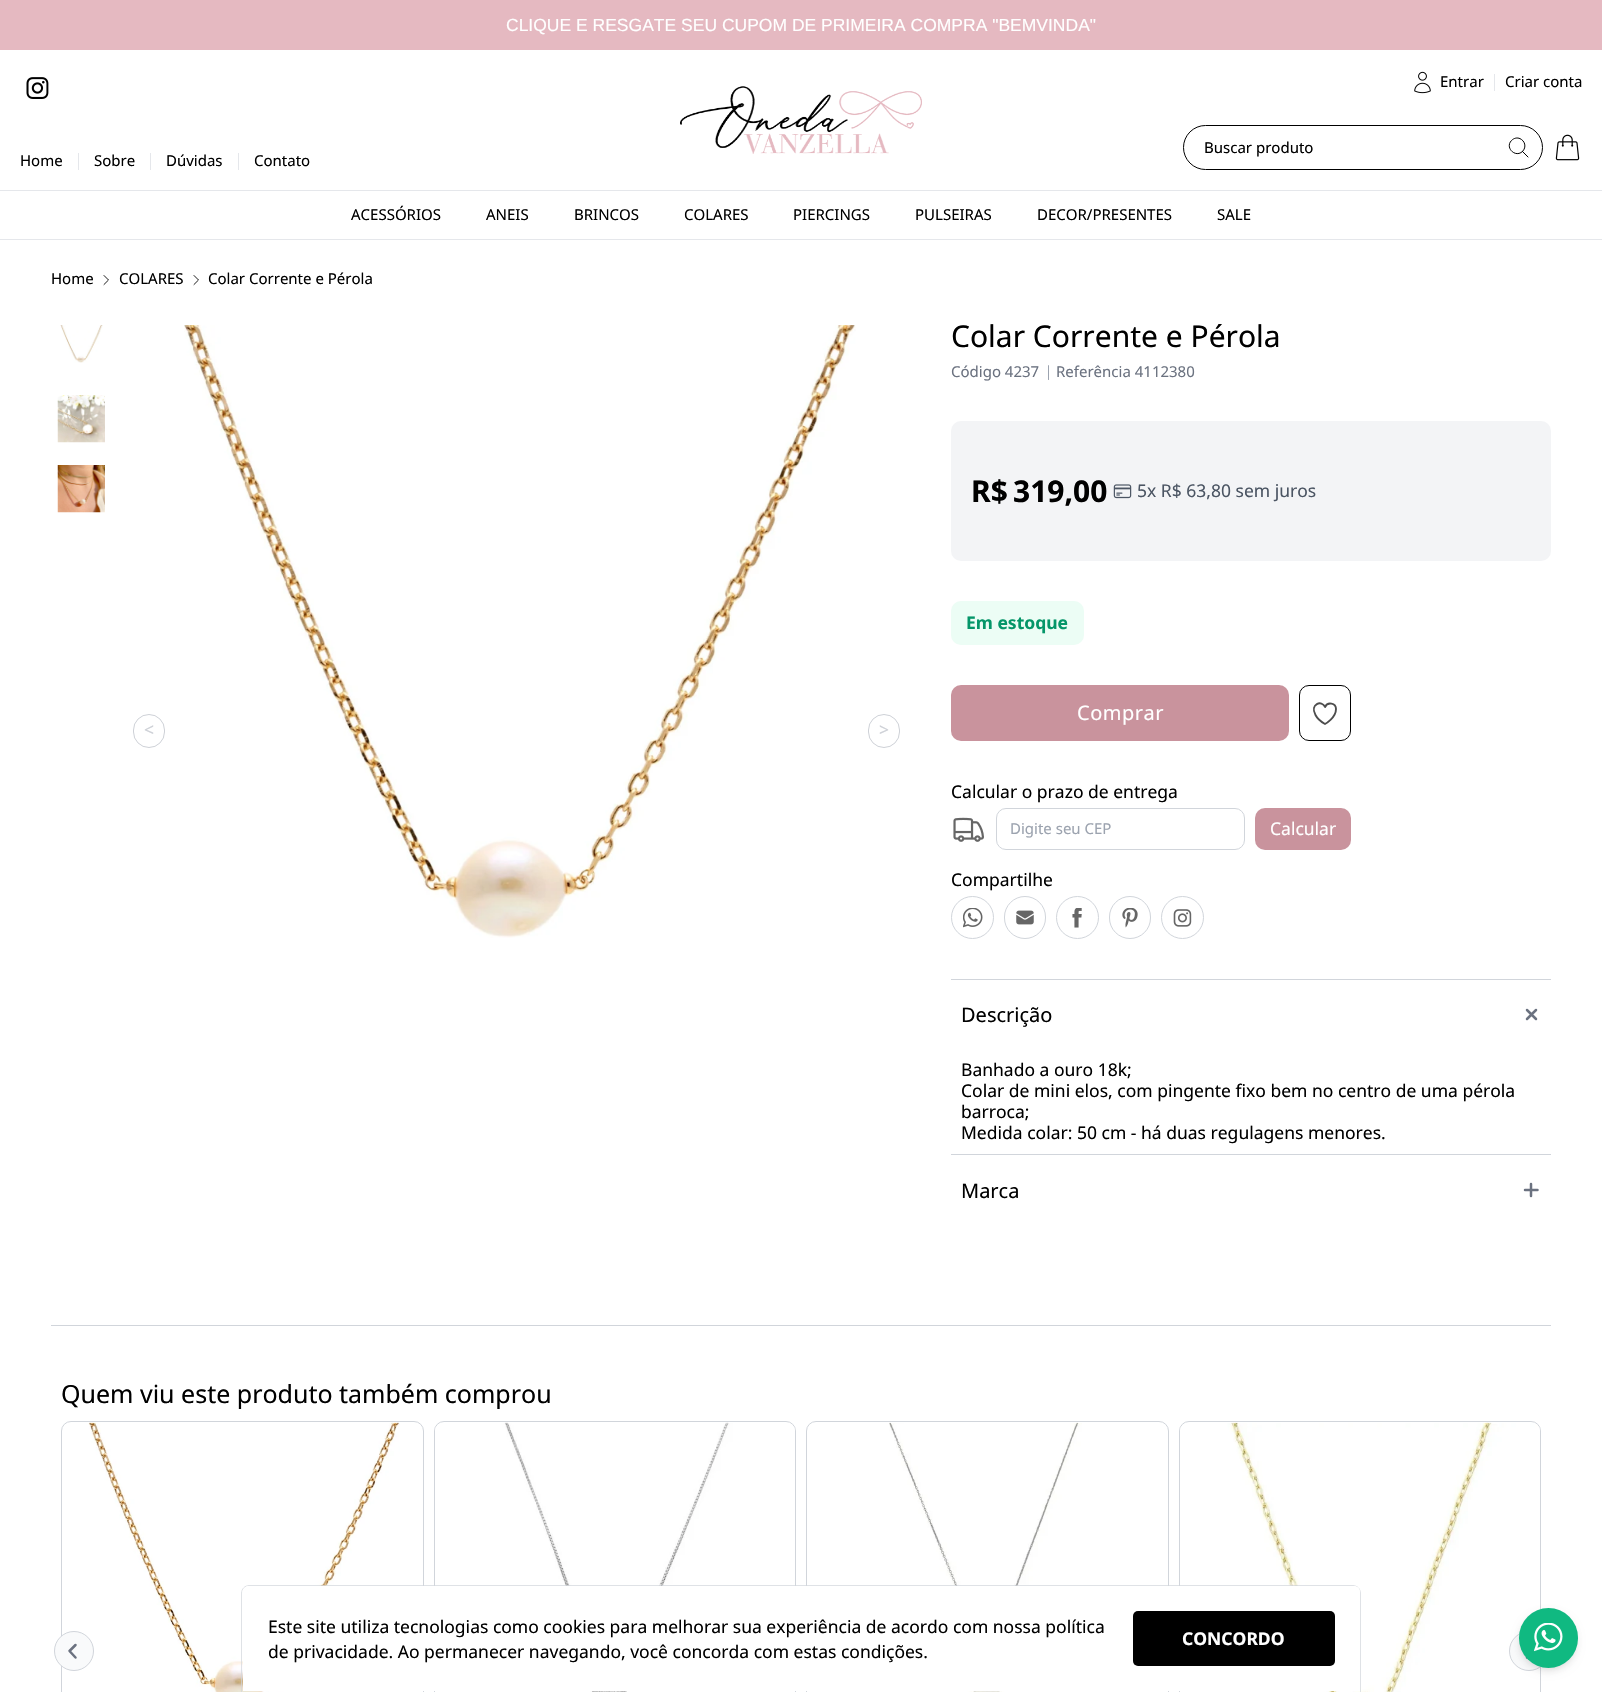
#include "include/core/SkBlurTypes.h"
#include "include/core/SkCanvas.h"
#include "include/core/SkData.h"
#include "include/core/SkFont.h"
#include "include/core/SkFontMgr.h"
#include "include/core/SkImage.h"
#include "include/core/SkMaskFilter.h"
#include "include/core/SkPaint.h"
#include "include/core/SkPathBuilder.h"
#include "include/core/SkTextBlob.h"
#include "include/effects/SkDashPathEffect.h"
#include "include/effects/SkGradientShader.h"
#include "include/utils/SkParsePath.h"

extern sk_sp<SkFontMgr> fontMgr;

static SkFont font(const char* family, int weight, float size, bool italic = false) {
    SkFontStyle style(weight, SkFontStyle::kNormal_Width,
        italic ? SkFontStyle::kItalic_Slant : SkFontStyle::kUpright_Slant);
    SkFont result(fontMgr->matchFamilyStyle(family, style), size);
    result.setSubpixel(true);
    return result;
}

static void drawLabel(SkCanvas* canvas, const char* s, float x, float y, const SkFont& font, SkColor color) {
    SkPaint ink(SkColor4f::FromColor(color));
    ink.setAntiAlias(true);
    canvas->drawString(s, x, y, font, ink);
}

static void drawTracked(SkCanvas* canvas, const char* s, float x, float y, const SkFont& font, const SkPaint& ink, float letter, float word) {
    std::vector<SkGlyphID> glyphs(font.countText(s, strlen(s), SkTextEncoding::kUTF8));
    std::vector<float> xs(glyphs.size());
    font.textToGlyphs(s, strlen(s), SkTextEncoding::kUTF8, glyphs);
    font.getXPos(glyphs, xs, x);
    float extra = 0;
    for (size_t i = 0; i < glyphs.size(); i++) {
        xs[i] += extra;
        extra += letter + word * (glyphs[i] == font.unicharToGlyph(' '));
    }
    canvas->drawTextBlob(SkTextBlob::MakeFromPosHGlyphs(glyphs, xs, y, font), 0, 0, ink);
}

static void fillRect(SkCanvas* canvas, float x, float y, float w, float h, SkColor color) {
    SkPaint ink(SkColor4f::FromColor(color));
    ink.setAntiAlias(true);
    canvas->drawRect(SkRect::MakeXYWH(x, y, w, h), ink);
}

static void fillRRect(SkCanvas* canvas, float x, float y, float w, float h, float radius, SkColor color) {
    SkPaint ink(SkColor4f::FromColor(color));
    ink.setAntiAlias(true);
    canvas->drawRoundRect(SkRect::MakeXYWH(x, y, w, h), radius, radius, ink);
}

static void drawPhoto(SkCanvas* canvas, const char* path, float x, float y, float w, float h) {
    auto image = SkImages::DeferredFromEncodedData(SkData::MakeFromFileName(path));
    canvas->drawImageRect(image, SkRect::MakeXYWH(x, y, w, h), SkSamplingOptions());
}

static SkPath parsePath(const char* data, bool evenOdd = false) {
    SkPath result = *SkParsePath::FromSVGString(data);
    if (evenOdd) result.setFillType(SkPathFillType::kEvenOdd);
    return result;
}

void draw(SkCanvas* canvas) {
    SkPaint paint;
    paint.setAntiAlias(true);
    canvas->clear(0xFFFFFFFF);
    fillRect(canvas, 0, 0, 1602, 50, 0xFFE5B9C1);
    SkFont font1 = font("Liberation Sans", 400, 17.5f);
    drawLabel(canvas, "CLIQUE E RESGATE SEU CUPOM DE PRIMEIRA COMPRA \"BEMVINDA\"", 506, 31, font1, 0xFFFFFFFF);
    fillRect(canvas, 0, 190, 1602, 1, 0xFFE5E7EB);
    drawPhoto(canvas, "assets/img1.png", 680, 86, 242, 68);
    drawPhoto(canvas, "assets/img2.png", 1414, 71, 17, 23);
    SkFont font2 = font("Noto Sans", 400, 15);
    drawLabel(canvas, "Entrar", 1440, 87, font2, 0xFF000000);
    fillRect(canvas, 1494, 74, 1, 17, 0xFFE5E7EB);
    drawLabel(canvas, "Criar conta", 1505, 87, font2, 0xFF000000);
    paint.setStroke(true);
    paint.setStrokeWidth(1);
    paint.setColor(0xFF000000);
    canvas->drawRoundRect(SkRect::MakeXYWH(1183.5f, 125.5f, 359, 44), 22, 22, paint);
    drawLabel(canvas, "Buscar produto", 1204, 153, font2, 0xFF000000);
    paint.setStrokeCap(SkPaint::kRound_Cap);
    paint.setStrokeJoin(SkPaint::kRound_Join);
    canvas->drawPath(parsePath("M1528 157L1522.5 151.5M1522.5 151.5C1530 144 1519 133 1511.5 140.5C1504.5 147.5 1515.5 158.5 1522.5 151.5Z"), paint);
    drawPhoto(canvas, "assets/img3.png", 1555, 134, 25, 27);
    drawPhoto(canvas, "assets/img4.png", 26, 77, 23, 22);
    drawLabel(canvas, "Home", 20, 166, font2, 0xFF000000);
    fillRect(canvas, 78, 153, 1, 17, 0xFFE5E7EB);
    drawLabel(canvas, "Sobre", 94, 166, font2, 0xFF000000);
    fillRect(canvas, 150, 153, 1, 17, 0xFFE5E7EB);
    drawLabel(canvas, "Dúvidas", 166, 166, font2, 0xFF000000);
    fillRect(canvas, 238, 153, 1, 17, 0xFFE5E7EB);
    drawLabel(canvas, "Contato", 254, 166, font2, 0xFF000000);
    fillRect(canvas, 0, 239, 1602, 1, 0xFFE5E7EB);
    drawLabel(canvas, "ACESSÓRIOS", 351, 220, font2, 0xFF000000);
    drawLabel(canvas, "ANEIS", 486, 220, font2, 0xFF000000);
    drawLabel(canvas, "BRINCOS", 574, 220, font2, 0xFF000000);
    drawLabel(canvas, "COLARES", 684, 220, font2, 0xFF000000);
    drawLabel(canvas, "PIERCINGS", 793, 220, font2, 0xFF000000);
    drawLabel(canvas, "PULSEIRAS", 915, 220, font2, 0xFF000000);
    drawLabel(canvas, "DECOR/PRESENTES", 1037, 220, font2, 0xFF000000);
    drawLabel(canvas, "SALE", 1217, 220, font2, 0xFF000000);
    drawLabel(canvas, "Home", 51, 284, font2, 0xFF000000);
    paint.setStrokeWidth(0.9f);
    canvas->drawPath(parsePath("M104 275.5L108.5 280L104 284.5"), paint);
    drawLabel(canvas, "COLARES", 119, 284, font2, 0xFF000000);
    canvas->drawPath(parsePath("M194 275.5L198.5 280L194 284.5"), paint);
    drawLabel(canvas, "Colar Corrente e Pérola", 208, 284, font2, 0xFF000000);
    drawPhoto(canvas, "assets/img5.png", 60, 325, 43, 38);
    drawPhoto(canvas, "assets/img6.png", 57, 395, 48, 48);
    drawPhoto(canvas, "assets/img7.png", 57, 465, 48, 48);
    paint.setStrokeWidth(1);
    paint.setStrokeCap(SkPaint::kButt_Cap);
    paint.setStrokeJoin(SkPaint::kMiter_Join);
    paint.setColor(0xFFCED1D7);
    canvas->drawRoundRect(SkRect::MakeXYWH(133.5f, 714.5f, 31, 33), 15.5f, 15.5f, paint);
    SkFont font3 = font("Noto Sans", 400, 17.5f);
    drawLabel(canvas, "<", 144, 736, font3, 0xFFCED1D7);
    drawPhoto(canvas, "assets/img8.png", 184, 325, 672, 613);
    canvas->drawRoundRect(SkRect::MakeXYWH(868.5f, 714.5f, 31, 33), 15.5f, 15.5f, paint);
    drawLabel(canvas, ">", 879, 736, font3, 0xFFCED1D7);
    SkFont font4 = font("Noto Sans", 400, 30);
    drawLabel(canvas, "Colar Corrente e Pérola", 951, 347, font4, 0xFF000000);
    drawLabel(canvas, "Código 4237", 951, 377, font2, 0xFF6B7280);
    fillRRect(canvas, 1048, 365, 1, 15, 0.5f, 0xFF9CA3AF);
    drawLabel(canvas, "Referência 4112380", 1056, 377, font2, 0xFF6B7280);
    fillRRect(canvas, 951, 421, 600, 140, 10, 0xFFF3F4F6);
    SkFont font5 = font("Noto Sans", 700, 30);
    drawLabel(canvas, "R$", 971, 502, font5, 0xFF000000);
    drawLabel(canvas, "319,00", 1013, 502, font5, 0xFF000000);
    drawPhoto(canvas, "assets/img9.png", 1113, 484, 19, 15);
    drawLabel(canvas, "5x R$ 63,80 sem juros", 1137, 497, font3, 0xFF4B5563);
    fillRRect(canvas, 951, 601, 133, 44, 10, 0xFFECFDF5);
    SkFont font6 = font("Noto Sans", 700, 17.5f);
    drawLabel(canvas, "Em estoque", 966, 629, font6, 0xFF059669);
    fillRRect(canvas, 951, 685, 338, 56, 10, 0xFFC9939D);
    SkFont font7 = font("Noto Sans", 400, 20);
    paint.setStroke(false);
    paint.setColor(0xFFFFFFFF);
    drawTracked(canvas, "Comprar", 1077, 720, font7, paint, 0.5f, 0);
    paint.setStroke(true);
    paint.setColor(0xFF000000);
    canvas->drawRoundRect(SkRect::MakeXYWH(1299.5f, 685.5f, 51, 55), 9.5f, 9.5f, paint);
    paint.setStrokeWidth(1.9f);
    paint.setStrokeCap(SkPaint::kRound_Cap);
    paint.setStrokeJoin(SkPaint::kRound_Join);
    paint.setColor(0xFF4D4D4D);
    canvas->drawPath(parsePath("M1336 709C1336 703 1327.5 701.5 1325 707C1322 699.5 1309.5 704 1315.5 715C1317.5 719 1321.5 722 1325 724C1325 724 1336 718 1336 709Z"), paint);
    drawLabel(canvas, "Calcular o prazo de entrega", 951, 798, font3, 0xFF000000);
    drawPhoto(canvas, "assets/img10.png", 953, 817, 31, 25);
    paint.setStrokeWidth(1);
    paint.setStrokeCap(SkPaint::kButt_Cap);
    paint.setStrokeJoin(SkPaint::kMiter_Join);
    paint.setColor(0xFFD1D5DB);
    canvas->drawRoundRect(SkRect::MakeXYWH(996.5f, 808.5f, 248, 41), 9.5f, 9.5f, paint);
    drawLabel(canvas, "Digite seu CEP", 1010, 834, font2, 0xFF9CA3AF);
    fillRRect(canvas, 1255, 808, 96, 42, 10, 0xFFC9939D);
    drawLabel(canvas, "Calcular", 1270, 835, font3, 0xFFFFFFFF);
    drawLabel(canvas, "Compartilhe", 951, 886, font3, 0xFF000000);
    canvas->drawCircle(972.5f, 917.5f, 21, paint);
    drawPhoto(canvas, "assets/img11.png", 963, 908, 20, 20);
    canvas->drawRoundRect(SkRect::MakeXYWH(1004.5f, 896.5f, 41, 42), 20.5f, 20.5f, paint);
    drawPhoto(canvas, "assets/img12.png", 1016, 910, 18, 15);
    canvas->drawCircle(1077.5f, 917.5f, 21, paint);
    drawPhoto(canvas, "assets/img13.png", 1072, 908, 10, 20);
    canvas->drawRoundRect(SkRect::MakeXYWH(1109.5f, 896.5f, 41, 42), 20.5f, 20.5f, paint);
    drawPhoto(canvas, "assets/img14.png", 1122, 908, 16, 20);
    canvas->drawCircle(1182.5f, 917.5f, 21, paint);
    drawPhoto(canvas, "assets/img15.png", 1173, 909, 19, 18);
    fillRect(canvas, 951, 979, 600, 1, 0xFFD1D5DB);
    drawLabel(canvas, "Descrição", 961, 1022, font7, 0xFF000000);
    paint.setStrokeWidth(2.5f);
    paint.setStrokeCap(SkPaint::kRound_Cap);
    paint.setStrokeJoin(SkPaint::kRound_Join);
    paint.setColor(0xFF6B7280);
    canvas->drawPath(parsePath("M1527 1019L1536 1010M1527 1010L1536 1019"), paint);
    drawLabel(canvas, "Banhado a ouro 18k;", 961, 1076, font3, 0xFF000000);
    drawLabel(canvas, "Colar de mini elos, com pingente fixo bem no centro de uma pérola", 961, 1097, font3, 0xFF000000);
    drawLabel(canvas, "barroca;", 961, 1118, font3, 0xFF000000);
    drawLabel(canvas, "Medida colar: 50 cm - há duas regulagens menores.", 961, 1139, font3, 0xFF000000);
    fillRect(canvas, 951, 1154, 600, 1, 0xFFD1D5DB);
    drawLabel(canvas, "Marca", 961, 1198, font7, 0xFF000000);
    canvas->drawPath(parsePath("M1531 1184V1196M1537.5 1190H1525"), paint);
    fillRect(canvas, 51, 1325, 1500, 1, 0xFFD1D5DB);
    SkFont font8 = font("Noto Sans", 400, 25);
    drawLabel(canvas, "Quem viu este produto também comprou", 61, 1403, font8, 0xFF000000);
    paint.setStrokeWidth(1);
    paint.setStrokeCap(SkPaint::kButt_Cap);
    paint.setStrokeJoin(SkPaint::kMiter_Join);
    paint.setColor(0xFFD1D5DB);
    canvas->drawRoundRect(SkRect::MakeXYWH(61.5f, 1421.5f, 362, 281), 9.5f, 9.5f, paint);
    drawPhoto(canvas, "assets/img16.png", 88, 1422, 312, 270);
    canvas->drawRoundRect(SkRect::MakeXYWH(434.5f, 1421.5f, 361, 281), 9.5f, 9.5f, paint);
    drawPhoto(canvas, "assets/img17.png", 435, 1422, 360, 270);
    canvas->drawRoundRect(SkRect::MakeXYWH(806.5f, 1421.5f, 362, 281), 9.5f, 9.5f, paint);
    drawPhoto(canvas, "assets/img18.png", 889, 1422, 193, 270);
    canvas->drawRoundRect(SkRect::MakeXYWH(1179.5f, 1421.5f, 361, 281), 9.5f, 9.5f, paint);
    drawPhoto(canvas, "assets/img19.png", 1180, 1422, 360, 270);
    paint.setStroke(false);
    paint.setColor(0xFFF9FAFB);
    canvas->drawCircle(74, 1651, 19.5f, paint);
    paint.setStroke(true);
    paint.setColor(0xFFD1D5DB);
    canvas->drawCircle(74, 1651, 19.5f, paint);
    paint.setStrokeWidth(2.5f);
    paint.setStrokeCap(SkPaint::kRound_Cap);
    paint.setStrokeJoin(SkPaint::kRound_Join);
    paint.setColor(0xFF6B7280);
    canvas->drawPath(parsePath("M75.5 1657.5L69.5 1651L75.5 1645"), paint);
    paint.setStroke(false);
    paint.setColor(0xFFF9FAFB);
    canvas->drawCircle(1529, 1651, 19.5f, paint);
    paint.setStroke(true);
    paint.setStrokeWidth(1);
    paint.setStrokeCap(SkPaint::kButt_Cap);
    paint.setStrokeJoin(SkPaint::kMiter_Join);
    paint.setColor(0xFFD1D5DB);
    canvas->drawCircle(1529, 1651, 19.5f, paint);
    paint.setStrokeWidth(2.5f);
    paint.setStrokeCap(SkPaint::kRound_Cap);
    paint.setStrokeJoin(SkPaint::kRound_Join);
    paint.setColor(0xFF6B7280);
    canvas->drawPath(parsePath("M1527 1645L1533 1651L1527 1657.5"), paint);
    paint.setStrokeWidth(1);
    paint.setStrokeCap(SkPaint::kButt_Cap);
    paint.setStrokeJoin(SkPaint::kMiter_Join);
    paint.setColor(0xB3D1D5DB);
    canvas->drawPath(parsePath("M249 1585.5H1353C1357 1585.5 1360.5 1589 1360.5 1593V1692.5H241.5V1593C241.5 1589 245 1585.5 249 1585.5Z"), paint);
    paint.setStroke(false);
    paint.setColor(0xFFFFFFFF);
    canvas->drawPath(parsePath("M249 1586H1354C1357.5 1586 1360 1588.5 1360 1592V1691H243V1592C243 1588.5 245.5 1586 249 1586Z"), paint);
    drawLabel(canvas, "Este site utiliza tecnologias como cookies para melhorar sua experiência de acordo com nossa política", 268, 1633, font3, 0xFF000000);
    drawLabel(canvas, "de privacidade. Ao permanecer navegando, você concorda com estas condições.", 268, 1658, font3, 0xFF000000);
    fillRRect(canvas, 1133, 1611, 202, 55, 5, 0xFF000000);
    drawLabel(canvas, "CONCORDO", 1182, 1645, font6, 0xFFFFFFFF);
    paint.setColor(0x0F000000);
    paint.setMaskFilter(SkMaskFilter::MakeBlur(kNormal_SkBlurStyle, 2.5f));
    canvas->drawRoundRect(SkRect::MakeXYWH(1520, 1611, 56, 58), 28, 28, paint);
    paint.setMaskFilter(nullptr);
    paint.setColor(0x1A000000);
    paint.setMaskFilter(SkMaskFilter::MakeBlur(kNormal_SkBlurStyle, 4));
    canvas->drawRoundRect(SkRect::MakeXYWH(1520, 1614, 56, 57), 28, 28, paint);
    paint.setMaskFilter(nullptr);
    fillRRect(canvas, 1519, 1608, 59, 60, 29.5f, 0xFF10B981);
    drawPhoto(canvas, "assets/img20.png", 1534, 1623, 29, 29);
}
